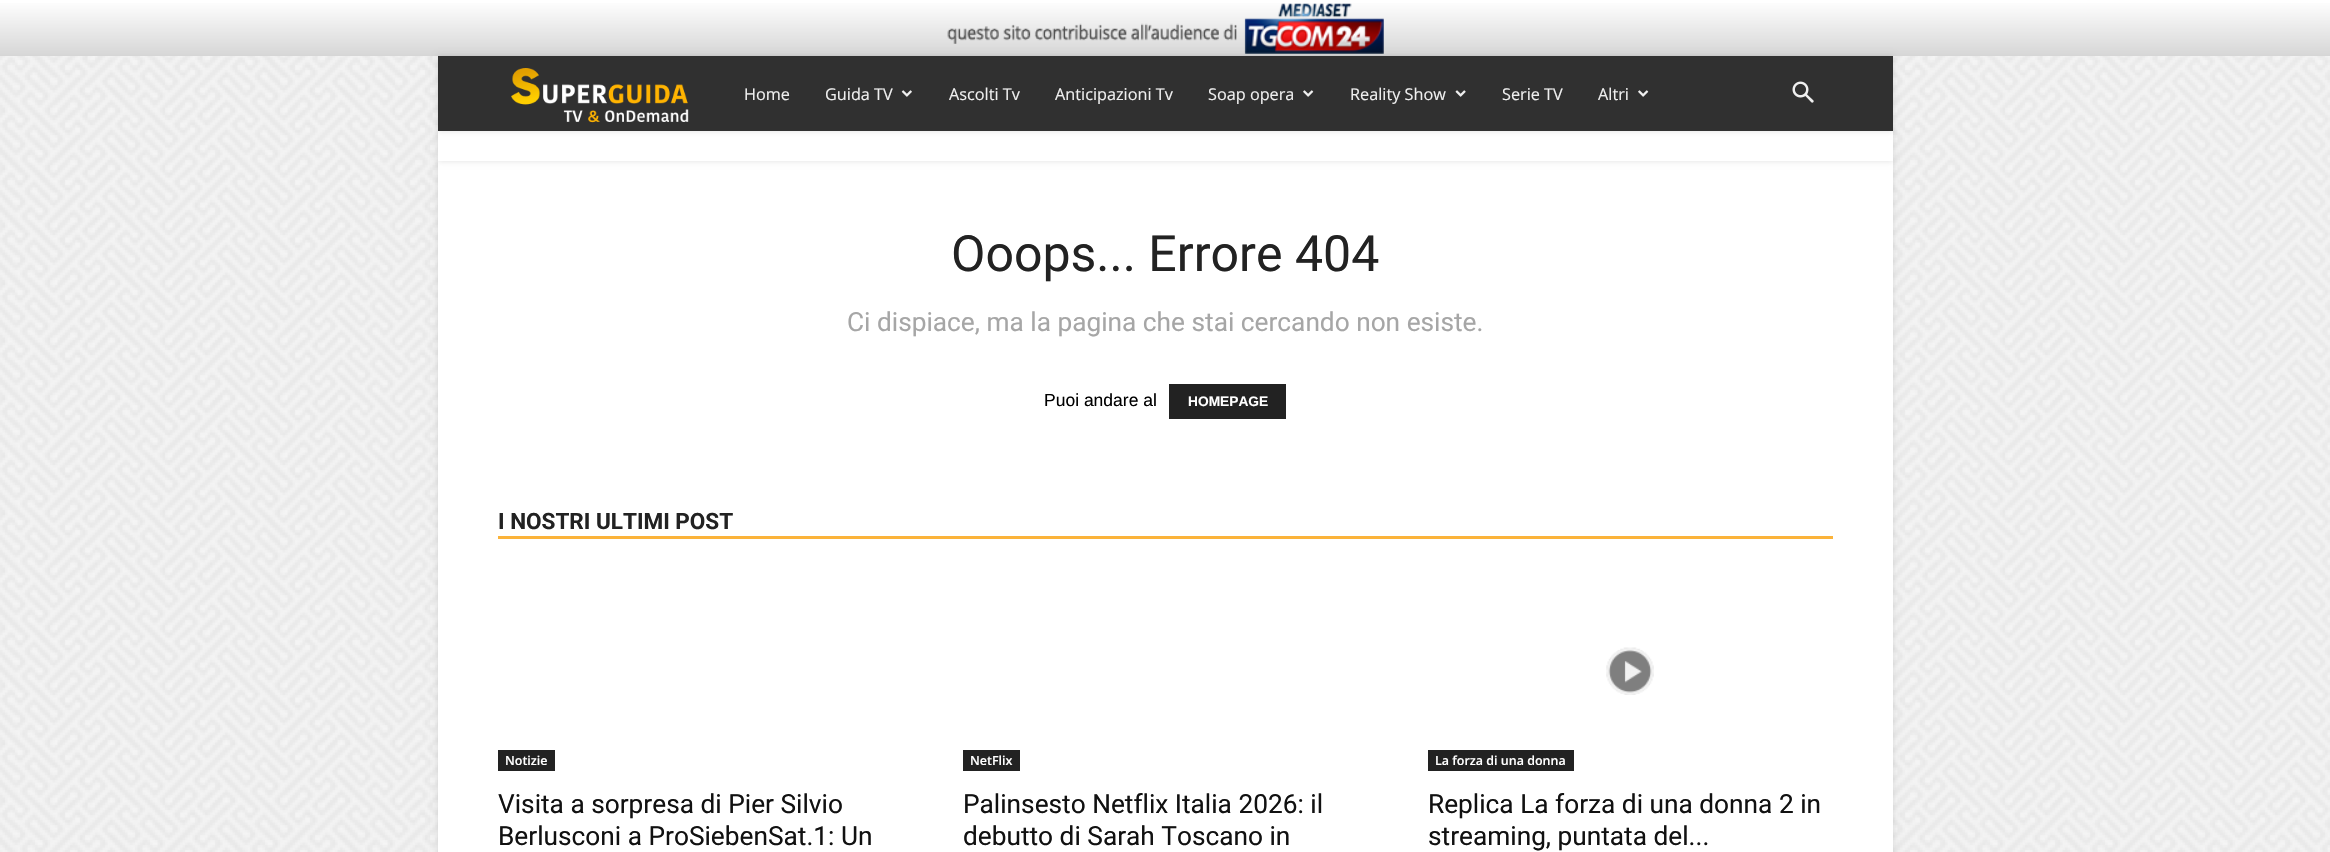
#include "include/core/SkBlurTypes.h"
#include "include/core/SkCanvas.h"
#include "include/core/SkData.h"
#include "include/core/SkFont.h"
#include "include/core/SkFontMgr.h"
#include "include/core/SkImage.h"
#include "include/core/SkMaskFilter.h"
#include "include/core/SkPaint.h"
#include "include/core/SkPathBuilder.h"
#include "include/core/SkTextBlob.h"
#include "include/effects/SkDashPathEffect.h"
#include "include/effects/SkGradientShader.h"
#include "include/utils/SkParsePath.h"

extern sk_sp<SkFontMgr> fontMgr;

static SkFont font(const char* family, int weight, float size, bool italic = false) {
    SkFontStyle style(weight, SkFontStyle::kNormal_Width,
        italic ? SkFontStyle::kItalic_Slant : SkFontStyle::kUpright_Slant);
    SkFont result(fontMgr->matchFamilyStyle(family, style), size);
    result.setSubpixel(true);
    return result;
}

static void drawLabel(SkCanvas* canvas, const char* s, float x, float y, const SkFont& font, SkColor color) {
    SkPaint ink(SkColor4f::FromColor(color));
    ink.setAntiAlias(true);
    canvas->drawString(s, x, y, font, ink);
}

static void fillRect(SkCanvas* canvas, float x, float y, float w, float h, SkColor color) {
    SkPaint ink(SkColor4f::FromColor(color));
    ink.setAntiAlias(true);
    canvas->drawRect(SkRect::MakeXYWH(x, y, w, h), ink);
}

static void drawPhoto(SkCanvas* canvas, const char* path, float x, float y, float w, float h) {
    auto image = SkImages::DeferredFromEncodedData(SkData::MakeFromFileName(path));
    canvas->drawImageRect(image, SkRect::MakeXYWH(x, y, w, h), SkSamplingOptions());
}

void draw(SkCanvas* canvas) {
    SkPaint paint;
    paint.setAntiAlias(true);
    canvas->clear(0xFFFFFFFF);
    drawPhoto(canvas, "assets/img1.png", 0, 56, 2330, 796);
    {
        const SkColor colors[] = {0xFFFFFFFF, 0xFFD6D6D6};
        const float stops[] = {0, 1};
        const SkPoint ends[] = {{1165, 0}, {1165, 56}};
        paint.setShader(SkGradientShader::MakeLinear(ends, colors, stops, 2, SkTileMode::kClamp));
        paint.setAlpha(255);
    }
    canvas->drawRect(SkRect::MakeXYWH(0, 3, 2330, 53), paint);
    drawPhoto(canvas, "assets/img2.png", 947, 3, 437, 51);
    paint.setShader(nullptr);
    paint.setColor(0x1F000000);
    paint.setMaskFilter(SkMaskFilter::MakeBlur(kNormal_SkBlurStyle, 3));
    canvas->drawRect(SkRect::MakeXYWH(438, 161, 1455, 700), paint);
    paint.setMaskFilter(nullptr);
    fillRect(canvas, 438, 161, 1455, 691, 0xFFFFFFFF);
    paint.setMaskFilter(SkMaskFilter::MakeBlur(kNormal_SkBlurStyle, 3));
    canvas->drawRect(SkRect::MakeXYWH(438, 131, 1455, 30), paint);
    paint.setMaskFilter(nullptr);
    fillRect(canvas, 438, 131, 1455, 30, 0xFFFFFFFF);
    paint.setMaskFilter(SkMaskFilter::MakeBlur(kNormal_SkBlurStyle, 3));
    canvas->drawRect(SkRect::MakeXYWH(438, 56, 1455, 75), paint);
    paint.setMaskFilter(nullptr);
    fillRect(canvas, 438, 56, 1455, 75, 0xFF303030);
    drawPhoto(canvas, "assets/img3.png", 511, 68, 178, 55);
    SkFont font1 = font("Open Sans", 400, 16.25f);
    drawLabel(canvas, "Home", 744, 100, font1, 0xFFEFEFEF);
    drawLabel(canvas, "Guida TV", 825, 100, font1, 0xFFEFEFEF);
    drawPhoto(canvas, "assets/img4.png", 901, 90, 11, 7);
    drawLabel(canvas, "Ascolti Tv", 949, 100, font1, 0xFFEFEFEF);
    drawLabel(canvas, "Anticipazioni Tv", 1055, 100, font1, 0xFFEFEFEF);
    drawLabel(canvas, "Soap opera", 1208, 100, font1, 0xFFEFEFEF);
    drawPhoto(canvas, "assets/img5.png", 1303, 90, 11, 7);
    drawLabel(canvas, "Reality Show", 1350, 100, font1, 0xFFEFEFEF);
    drawPhoto(canvas, "assets/img6.png", 1455, 90, 11, 7);
    drawLabel(canvas, "Serie TV", 1502, 100, font1, 0xFFEFEFEF);
    drawLabel(canvas, "Altri", 1598, 100, font1, 0xFFEFEFEF);
    drawPhoto(canvas, "assets/img5.png", 1638, 90, 11, 7);
    drawPhoto(canvas, "assets/img7.png", 1792, 81, 22, 22);
    SkFont font2 = font("Roboto", 400, 50);
    drawLabel(canvas, "Ooops... Errore 404", 951, 271, font2, 0xFF222222);
    SkFont font3 = font("Roboto", 400, 26.25f);
    drawLabel(canvas, "Ci dispiace, ma la pagina che stai cercando non esiste.", 847, 331, font3, 0xFFA6A6A6);
    SkFont font4 = font("Liberation Sans", 400, 17.5f);
    drawLabel(canvas, "Puoi andare al", 1044, 406, font4, 0xFF000000);
    fillRect(canvas, 1169, 384, 117, 35, 0xFF222222);
    SkFont font5 = font("Liberation Sans", 700, 13.75f);
    drawLabel(canvas, "HOMEPAGE", 1188, 406, font5, 0xFFFFFFFF);
    fillRect(canvas, 498, 536, 1335, 3, 0xFFFBB33A);
    SkFont font6 = font("Roboto", 700, 22.5f);
    drawLabel(canvas, "I NOSTRI ULTIMI POST", 498, 529, font6, 0xFF222222);
    fillRect(canvas, 498, 750, 57, 21, 0xFF222222);
    SkFont font7 = font("Open Sans", 600, 12.5f);
    drawLabel(canvas, "Notizie", 505, 765, font7, 0xFFFFFFFF);
    drawLabel(canvas, "Visita a sorpresa di Pier Silvio", 498, 813, font3, 0xFF111111);
    drawLabel(canvas, "Berlusconi a ProSiebenSat.1: Un", 498, 845, font3, 0xFF111111);
    fillRect(canvas, 963, 750, 57, 21, 0xFF222222);
    drawLabel(canvas, "NetFlix", 970, 765, font7, 0xFFFFFFFF);
    drawLabel(canvas, "Palinsesto Netflix Italia 2026: il", 963, 813, font3, 0xFF111111);
    drawLabel(canvas, "debutto di Sarah Toscano in", 963, 845, font3, 0xFF111111);
    drawPhoto(canvas, "assets/img8.png", 1606, 647, 48, 48);
    fillRect(canvas, 1428, 750, 146, 21, 0xFF222222);
    drawLabel(canvas, "La forza di una donna", 1435, 765, font7, 0xFFFFFFFF);
    drawLabel(canvas, "Replica La forza di una donna 2 in", 1428, 813, font3, 0xFF111111);
    drawLabel(canvas, "streaming, puntata del...", 1428, 845, font3, 0xFF111111);
}
